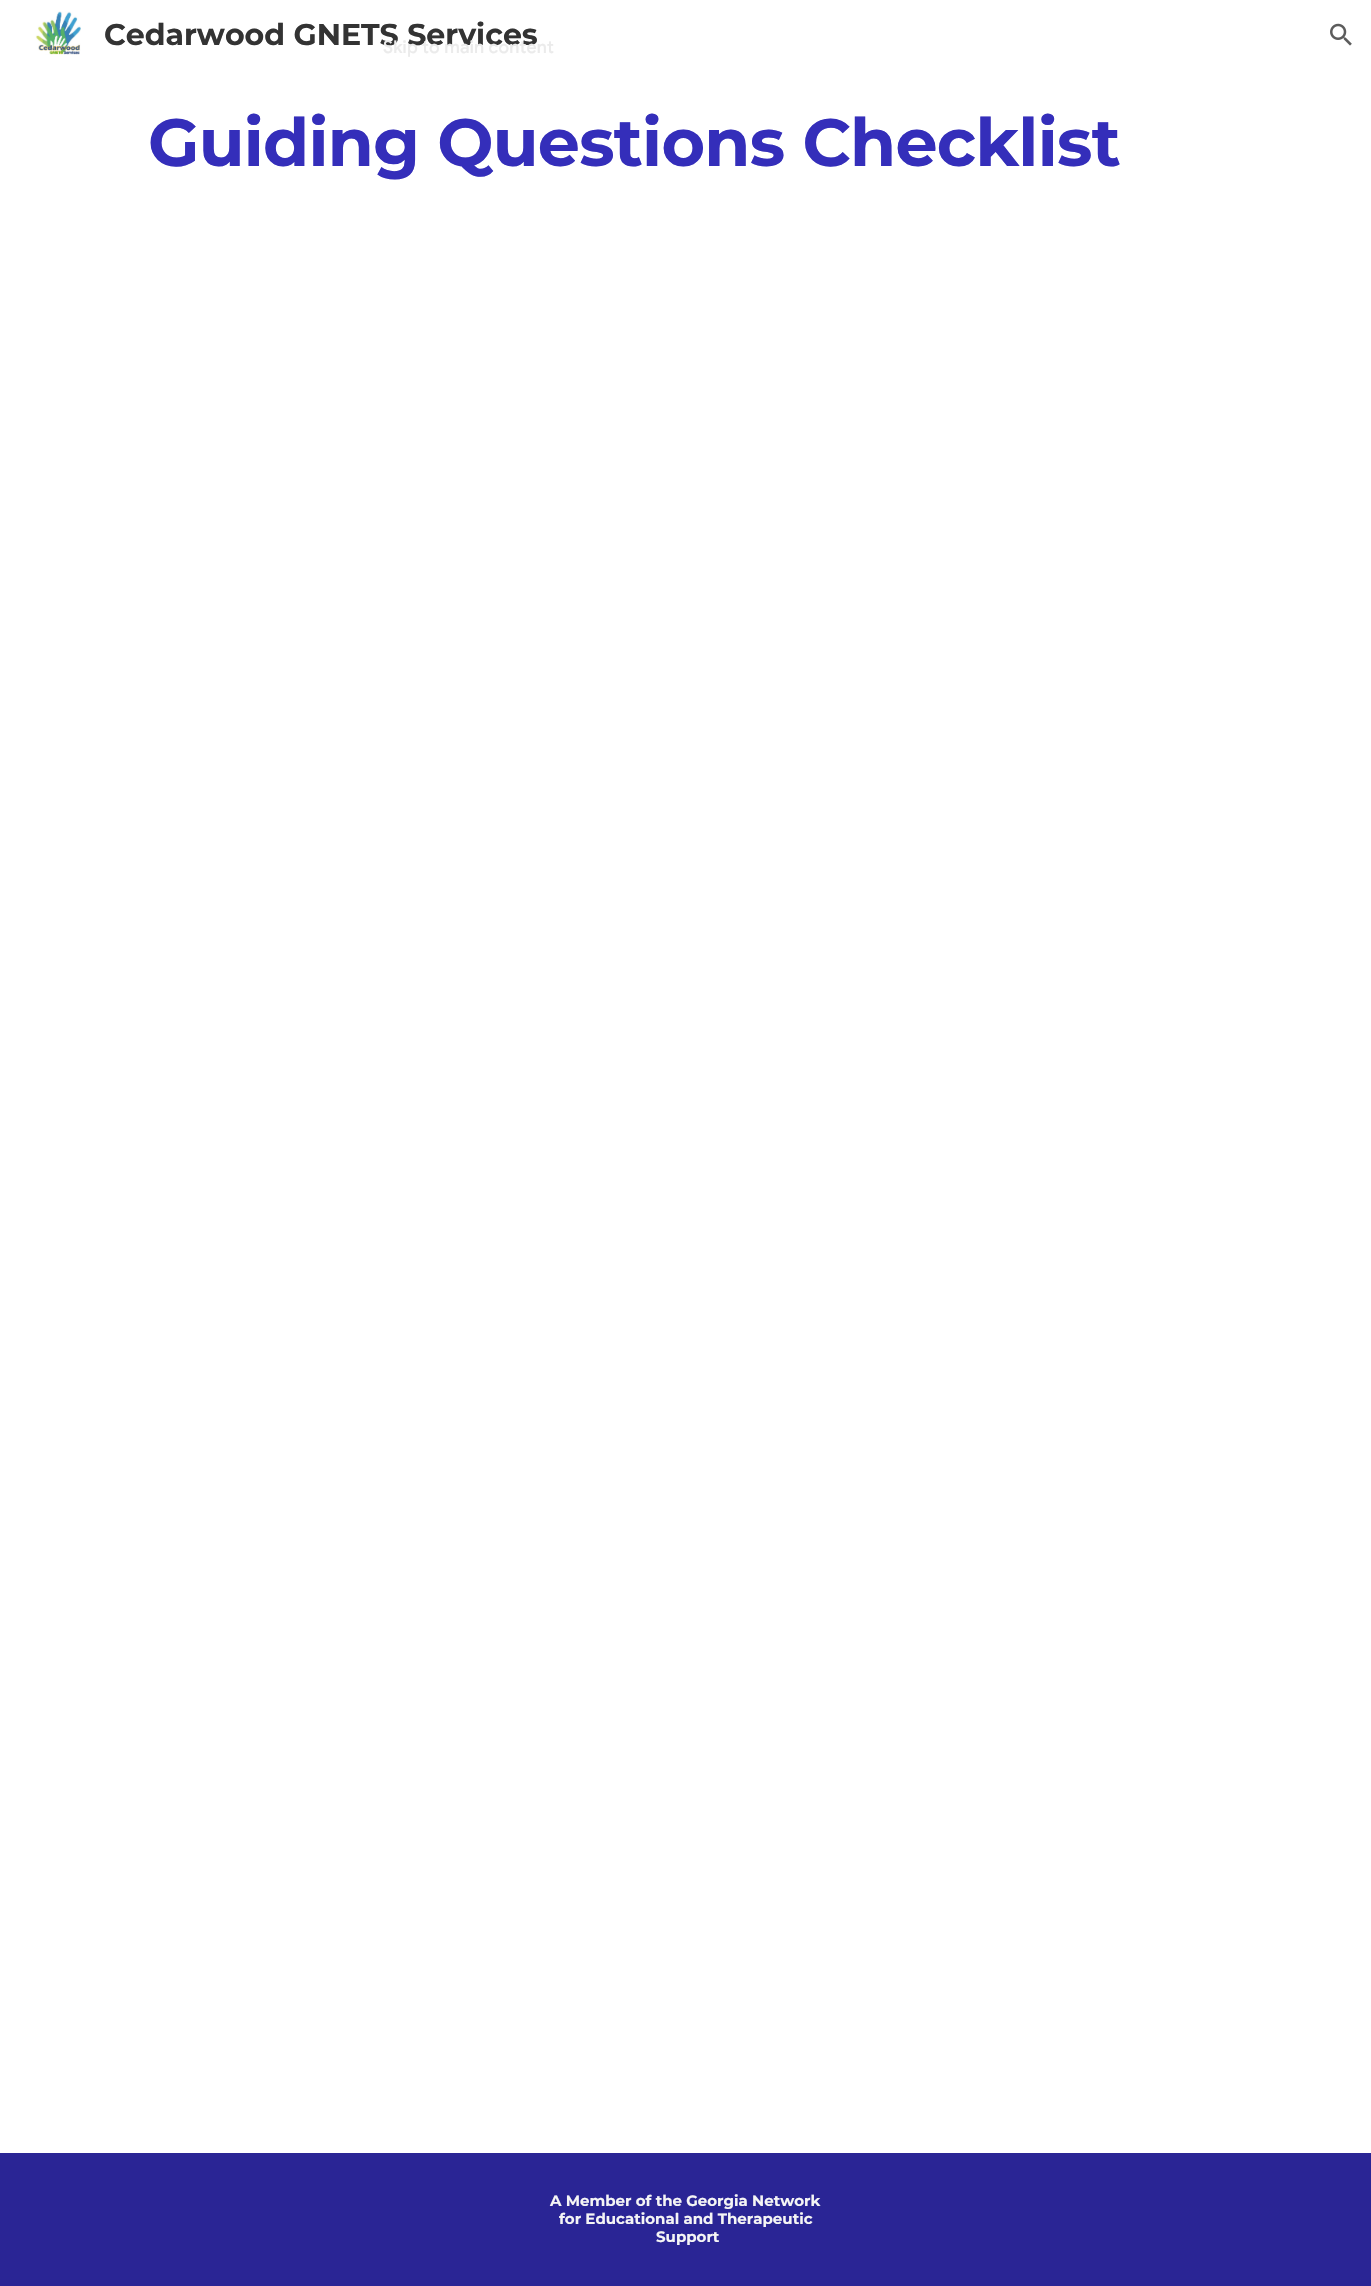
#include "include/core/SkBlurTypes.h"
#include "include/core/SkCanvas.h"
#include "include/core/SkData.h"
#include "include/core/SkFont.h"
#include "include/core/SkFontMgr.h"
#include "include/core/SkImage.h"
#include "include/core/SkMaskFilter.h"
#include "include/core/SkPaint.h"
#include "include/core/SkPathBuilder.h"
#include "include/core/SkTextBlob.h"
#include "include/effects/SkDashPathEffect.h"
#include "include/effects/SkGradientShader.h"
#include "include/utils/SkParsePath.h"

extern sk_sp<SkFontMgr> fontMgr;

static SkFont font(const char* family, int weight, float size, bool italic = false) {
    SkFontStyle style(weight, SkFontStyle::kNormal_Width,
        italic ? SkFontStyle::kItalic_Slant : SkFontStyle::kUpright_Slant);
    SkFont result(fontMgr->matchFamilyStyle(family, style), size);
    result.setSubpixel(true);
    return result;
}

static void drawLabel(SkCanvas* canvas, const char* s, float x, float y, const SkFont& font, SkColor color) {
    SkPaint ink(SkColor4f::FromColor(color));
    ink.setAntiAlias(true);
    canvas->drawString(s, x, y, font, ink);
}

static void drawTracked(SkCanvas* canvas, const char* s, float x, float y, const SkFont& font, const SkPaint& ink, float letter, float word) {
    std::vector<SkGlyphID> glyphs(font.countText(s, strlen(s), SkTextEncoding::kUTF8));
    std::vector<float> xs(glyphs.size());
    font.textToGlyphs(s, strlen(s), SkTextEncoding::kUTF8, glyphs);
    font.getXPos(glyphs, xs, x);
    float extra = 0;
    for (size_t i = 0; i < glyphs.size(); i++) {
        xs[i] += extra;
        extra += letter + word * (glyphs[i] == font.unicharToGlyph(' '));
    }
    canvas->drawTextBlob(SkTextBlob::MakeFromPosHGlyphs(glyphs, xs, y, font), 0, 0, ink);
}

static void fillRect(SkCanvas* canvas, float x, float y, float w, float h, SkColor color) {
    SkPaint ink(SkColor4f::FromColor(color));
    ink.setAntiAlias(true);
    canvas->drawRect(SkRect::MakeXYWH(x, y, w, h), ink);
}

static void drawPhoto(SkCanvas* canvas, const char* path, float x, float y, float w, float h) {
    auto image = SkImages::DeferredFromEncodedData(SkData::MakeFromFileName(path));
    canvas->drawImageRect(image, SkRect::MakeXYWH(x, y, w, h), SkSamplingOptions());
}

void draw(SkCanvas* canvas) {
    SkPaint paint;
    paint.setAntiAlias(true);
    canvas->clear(0xFFFFFFFF);
    drawPhoto(canvas, "assets/img1.png", 35, 11, 46, 44);
    SkFont font1 = font("Montserrat", 700, 30);
    drawLabel(canvas, "Cedarwood GNETS Services", 104, 45, font1, 0xFF333333);
    drawPhoto(canvas, "assets/img2.png", 1330, 23, 22, 23);
    SkFont font2 = font("Montserrat", 700, 66.7f);
    paint.setColor(0xFF342EBA);
    drawTracked(canvas, "Guiding Questions Checklist", 148, 166, font2, paint, -0.75f, 0);
    fillRect(canvas, 0, 2153, 1371, 133, 0xFF2A2595);
    SkFont font3 = font("Montserrat", 700, 15);
    drawLabel(canvas, "A Member of the Georgia Network", 550, 2206, font3, 0xFFF5F5F5);
    drawLabel(canvas, "for Educational and Therapeutic", 559, 2224, font3, 0xFFF5F5F5);
    drawLabel(canvas, "Support", 656, 2242, font3, 0xFFF5F5F5);
    SkFont font4 = font("Google Sans", 500, 17.5f);
    paint.setColor(0xFFEBEBEB);
    drawTracked(canvas, "Skip to main content", 383, 53, font4, paint, 0.2f, 0);
}
